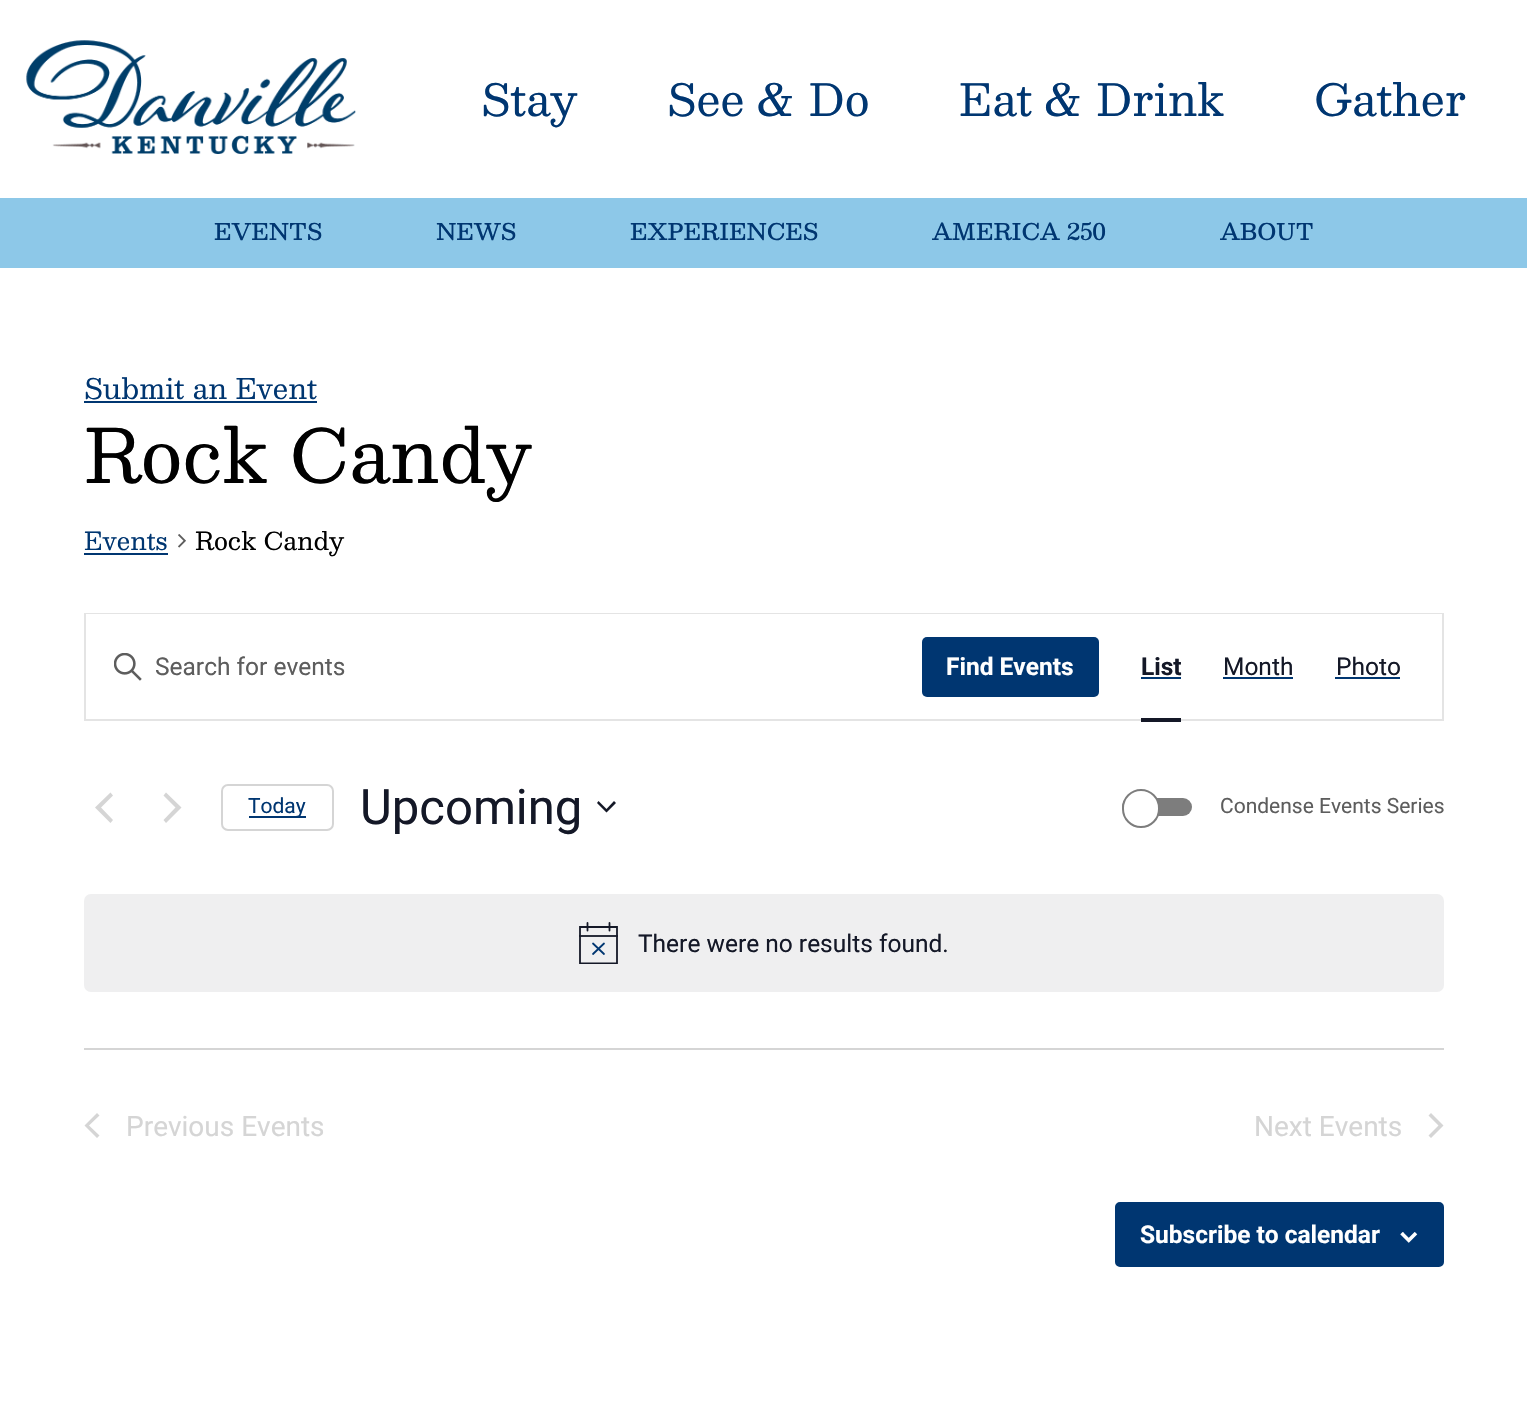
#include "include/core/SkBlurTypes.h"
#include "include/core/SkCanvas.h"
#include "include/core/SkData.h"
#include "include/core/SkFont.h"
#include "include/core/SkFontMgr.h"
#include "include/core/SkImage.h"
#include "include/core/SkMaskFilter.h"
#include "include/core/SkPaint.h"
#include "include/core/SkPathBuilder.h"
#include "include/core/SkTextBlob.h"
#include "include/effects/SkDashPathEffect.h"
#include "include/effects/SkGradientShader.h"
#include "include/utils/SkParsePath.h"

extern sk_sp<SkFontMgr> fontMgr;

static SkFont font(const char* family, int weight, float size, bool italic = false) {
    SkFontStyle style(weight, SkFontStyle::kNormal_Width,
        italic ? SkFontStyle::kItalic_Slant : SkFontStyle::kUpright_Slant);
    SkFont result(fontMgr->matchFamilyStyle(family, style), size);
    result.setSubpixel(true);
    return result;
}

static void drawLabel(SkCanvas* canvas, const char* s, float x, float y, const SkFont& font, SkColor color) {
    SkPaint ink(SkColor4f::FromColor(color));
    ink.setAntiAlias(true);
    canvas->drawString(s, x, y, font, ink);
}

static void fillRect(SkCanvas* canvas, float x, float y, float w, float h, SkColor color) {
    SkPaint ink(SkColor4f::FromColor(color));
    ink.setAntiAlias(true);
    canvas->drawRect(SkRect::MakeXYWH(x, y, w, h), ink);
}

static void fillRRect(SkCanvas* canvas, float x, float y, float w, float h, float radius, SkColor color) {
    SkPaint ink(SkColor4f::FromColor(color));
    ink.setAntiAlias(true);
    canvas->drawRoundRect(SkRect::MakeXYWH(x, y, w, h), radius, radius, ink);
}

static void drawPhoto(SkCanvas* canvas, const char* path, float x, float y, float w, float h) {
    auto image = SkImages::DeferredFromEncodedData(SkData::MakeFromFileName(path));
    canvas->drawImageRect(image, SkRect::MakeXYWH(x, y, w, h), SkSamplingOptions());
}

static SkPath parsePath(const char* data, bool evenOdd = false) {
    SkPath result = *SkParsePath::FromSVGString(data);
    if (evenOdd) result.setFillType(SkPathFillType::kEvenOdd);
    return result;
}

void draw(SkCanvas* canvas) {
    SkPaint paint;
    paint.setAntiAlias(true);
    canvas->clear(0xFFFFFFFF);
    drawPhoto(canvas, "assets/img1.png", 26, 40, 330, 114);
    SkFont font1 = font("Besley", 400, 43.75f);
    drawLabel(canvas, "Stay", 481, 116, font1, 0xFF003671);
    drawLabel(canvas, "See & Do", 667, 116, font1, 0xFF003671);
    drawLabel(canvas, "Eat & Drink", 959, 116, font1, 0xFF003671);
    drawLabel(canvas, "Gather", 1314, 116, font1, 0xFF003671);
    fillRect(canvas, 0, 198, 1527, 70, 0xFF8DC8E8);
    SkFont font2 = font("Besley", 500, 22.75f);
    drawLabel(canvas, "EVENTS", 214, 240, font2, 0xFF003671);
    drawLabel(canvas, "NEWS", 436, 240, font2, 0xFF003671);
    drawLabel(canvas, "EXPERIENCES", 630, 240, font2, 0xFF003671);
    drawLabel(canvas, "AMERICA 250", 932, 240, font2, 0xFF003671);
    drawLabel(canvas, "ABOUT", 1220, 240, font2, 0xFF003671);
    SkFont font3 = font("Besley", 400, 28);
    drawLabel(canvas, "Submit an Event", 84, 399, font3, 0xFF003671);
    fillRect(canvas, 84, 401, 233, 2, 0xFF003671);
    SkFont font4 = font("Besley", 400, 73.5f);
    drawLabel(canvas, "Rock Candy", 84, 483, font4, 0xFF000000);
    SkFont font5 = font("Besley", 400, 24.5f);
    drawLabel(canvas, "Events", 84, 550, font5, 0xFF003671);
    fillRect(canvas, 84, 553, 84, 2, 0xFF003671);
    drawPhoto(canvas, "assets/img2.png", 178, 534, 8, 14);
    drawLabel(canvas, "Rock Candy", 195, 550, font5, 0xFF000000);
    paint.setStroke(true);
    paint.setStrokeWidth(2);
    paint.setColor(0xFFE4E4E4);
    canvas->drawRect(SkRect::MakeXYWH(85, 614, 1358, 106), paint);
    fillRect(canvas, 86, 614, 1356, 1, 0xFFFFFFFF);
    drawPhoto(canvas, "assets/img3.png", 114, 653, 28, 28);
    SkFont font6 = font("Roboto", 400, 24.5f);
    drawLabel(canvas, "Search for events", 155, 675, font6, 0xFF5D5D5D);
    fillRRect(canvas, 922, 637, 177, 60, 5, 0xFF003671);
    SkFont font7 = font("Roboto", 700, 24.5f);
    drawLabel(canvas, "Find Events", 946, 675, font7, 0xFFFFFFFF);
    drawLabel(canvas, "List", 1141, 675, font7, 0xFF141827);
    fillRect(canvas, 1141, 677, 40, 2, 0xFF003671);
    fillRect(canvas, 1141, 718, 40, 4, 0xFF141827);
    drawLabel(canvas, "Month", 1223, 675, font6, 0xFF141827);
    fillRect(canvas, 1223, 677, 70, 2, 0xFF003671);
    drawLabel(canvas, "Photo", 1336, 675, font6, 0xFF141827);
    fillRect(canvas, 1335, 677, 65, 2, 0xFF003671);
    paint.setStroke(false);
    paint.setColor(0xFFD5D5D5);
    canvas->drawPath(parsePath("M113 820L110.5 823L95 807.5L110.5 792.5L113 795.5L101 807.5Z"), paint);
    canvas->drawPath(parsePath("M163.5 795.5L166 792.5L181.5 807.5L166 823L163.5 820L175.5 807.5Z"), paint);
    paint.setStroke(true);
    canvas->drawRoundRect(SkRect::MakeXYWH(222, 785, 111, 45), 6, 6, paint);
    fillRect(canvas, 249, 816, 57, 2, 0xFF003671);
    SkFont font8 = font("Roboto", 400, 21);
    drawLabel(canvas, "Today", 248, 813, font8, 0xFF003671);
    SkFont font9 = font("Roboto", 400, 49);
    drawLabel(canvas, "Upcoming", 360, 824, font9, 0xFF141827);
    paint.setStroke(false);
    paint.setColor(0xFF141827);
    canvas->drawPath(parsePath("M598.5 801L606.5 809L614 801L616 803L606.5 812.5L597 803Z", true), paint);
    fillRRect(canvas, 1122, 798, 70, 18, 9, 0xFF7D7D7D);
    paint.setColor(0xFFFFFFFF);
    canvas->drawRoundRect(SkRect::MakeXYWH(1123, 790, 36, 37), 18, 18, paint);
    paint.setStroke(true);
    paint.setColor(0xFF7D7D7D);
    canvas->drawRoundRect(SkRect::MakeXYWH(1123, 790, 36, 37), 18, 18, paint);
    drawLabel(canvas, "Condense Events Series", 1220, 813, font8, 0xFF5D5D5D);
    fillRRect(canvas, 84, 894, 1360, 98, 7, 0xFFEFEFF0);
    canvas->save();
    canvas->clipRect(SkRect::MakeXYWH(579, 922, 39, 42));
    paint.setStrokeWidth(1.8f);
    paint.setColor(0xFF141827);
    canvas->drawPath(parsePath("M580 927H617V963.5H580Z"), paint);
    canvas->restore();
    paint.setStrokeCap(SkPaint::kRound_Cap);
    paint.setColor(0xFF003671);
    canvas->drawPath(parsePath("M593 943.5L604 954M604 943.5L593 954"), paint);
    paint.setColor(0xFF141827);
    canvas->drawPath(parsePath("M587.5 923V930.5M609.5 923V930.5"), paint);
    fillRect(canvas, 579, 935, 39, 2, 0xE6141827);
    drawLabel(canvas, "There were no results found.", 638, 952, font6, 0xFF141827);
    fillRect(canvas, 84, 1048, 1360, 2, 0xFFD5D5D5);
    paint.setStroke(false);
    paint.setColor(0xFFD5D5D5);
    canvas->drawPath(parsePath("M99.5 1135.5L97 1138L84.5 1125.5L97 1113L99.5 1115.5L89 1125.5Z"), paint);
    SkFont font10 = font("Roboto", 400, 28);
    drawLabel(canvas, "Previous Events", 126, 1136, font10, 0xFFD5D5D5);
    drawLabel(canvas, "Next Events", 1254, 1136, font10, 0xFFD5D5D5);
    canvas->drawPath(parsePath("M1428.5 1115.5L1431 1113L1443.5 1125.5L1431 1138L1428.5 1135.5L1438.5 1125.5Z"), paint);
    paint.setColor(0xFF003671);
    canvas->drawRoundRect(SkRect::MakeXYWH(1116, 1203, 327, 63), 4, 4, paint);
    paint.setStroke(true);
    paint.setStrokeWidth(2);
    paint.setStrokeCap(SkPaint::kButt_Cap);
    canvas->drawRoundRect(SkRect::MakeXYWH(1116, 1203, 327, 63), 4, 4, paint);
    drawLabel(canvas, "Subscribe to calendar", 1140, 1243, font7, 0xFFFFFFFF);
    drawPhoto(canvas, "assets/img4.png", 1400, 1232, 18, 11);
}
